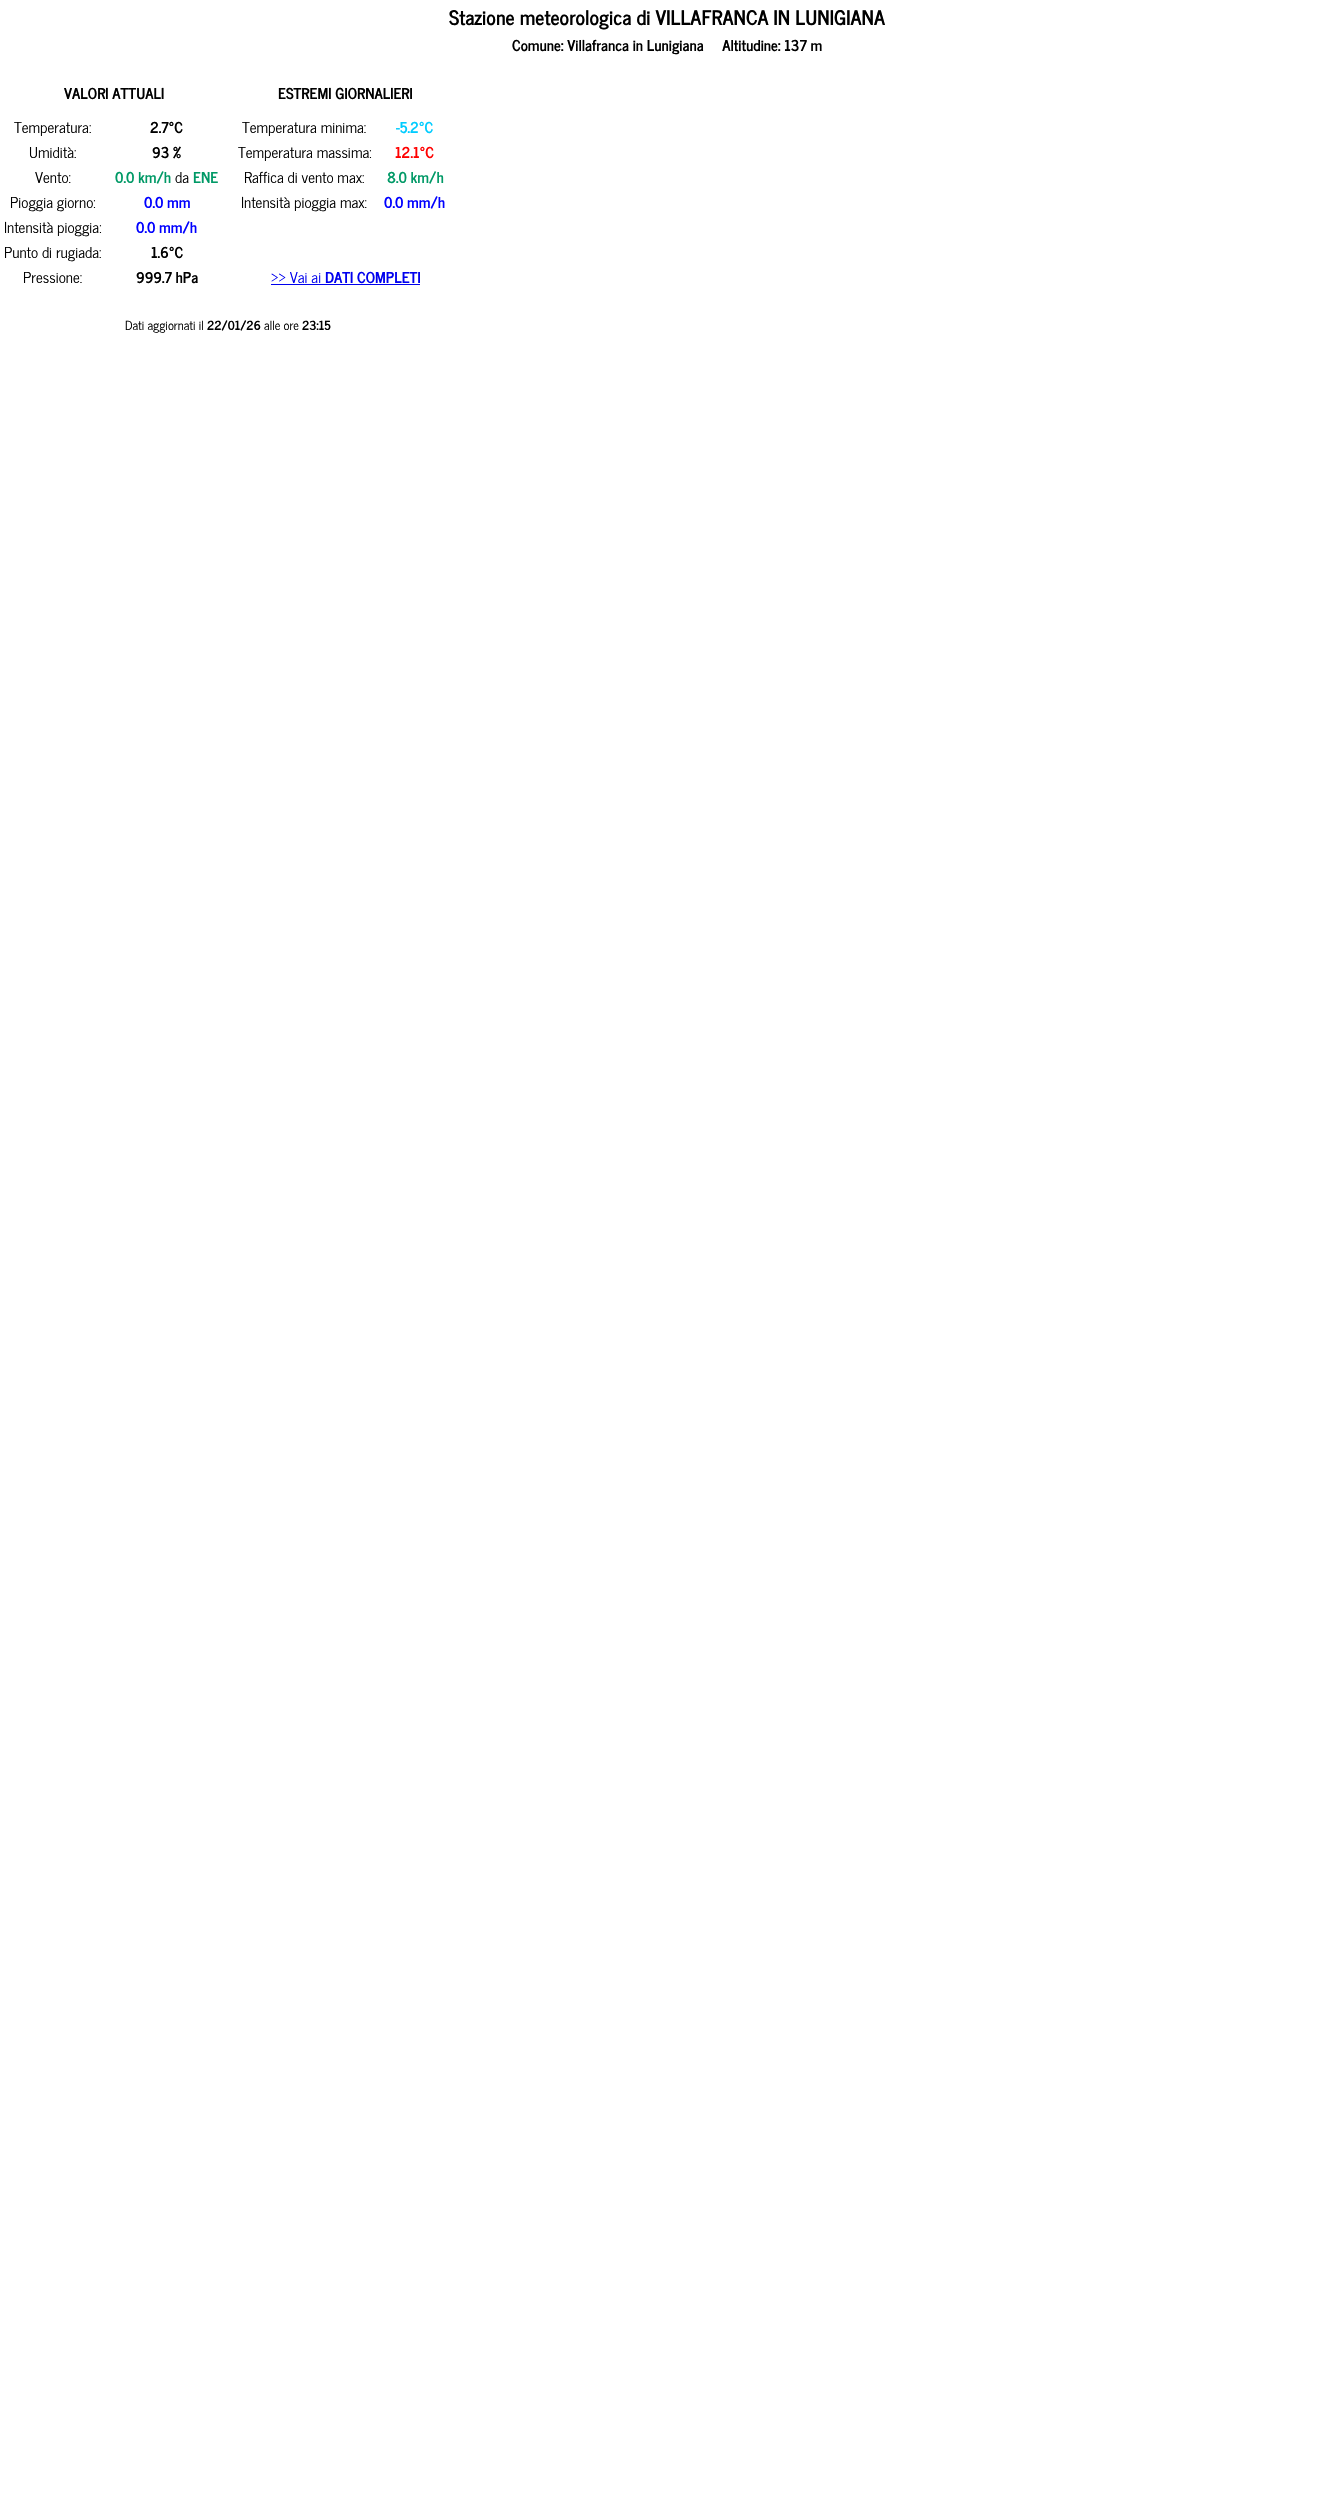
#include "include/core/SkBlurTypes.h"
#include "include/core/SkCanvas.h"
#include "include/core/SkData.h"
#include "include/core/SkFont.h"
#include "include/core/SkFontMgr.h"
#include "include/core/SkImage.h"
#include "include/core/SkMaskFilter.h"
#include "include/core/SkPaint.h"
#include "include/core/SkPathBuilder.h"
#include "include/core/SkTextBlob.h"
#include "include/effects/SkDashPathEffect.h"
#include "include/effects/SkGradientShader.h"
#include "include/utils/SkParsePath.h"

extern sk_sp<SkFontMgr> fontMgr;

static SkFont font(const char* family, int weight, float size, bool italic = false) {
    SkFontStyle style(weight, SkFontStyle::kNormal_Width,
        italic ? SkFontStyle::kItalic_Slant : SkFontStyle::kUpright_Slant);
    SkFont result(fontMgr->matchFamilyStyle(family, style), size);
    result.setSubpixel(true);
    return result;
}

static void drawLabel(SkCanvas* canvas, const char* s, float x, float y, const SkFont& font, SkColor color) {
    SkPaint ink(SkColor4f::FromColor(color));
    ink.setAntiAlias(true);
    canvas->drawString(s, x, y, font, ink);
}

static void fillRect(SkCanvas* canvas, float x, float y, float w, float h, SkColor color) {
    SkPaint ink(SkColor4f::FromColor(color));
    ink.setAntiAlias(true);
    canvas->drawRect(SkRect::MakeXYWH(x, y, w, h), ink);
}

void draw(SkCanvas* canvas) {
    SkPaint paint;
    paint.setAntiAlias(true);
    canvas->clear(0xFFFFFFFF);
    SkFont font1 = font("News Cycle", 700, 20);
    drawLabel(canvas, "Stazione meteorologica di VILLAFRANCA IN LUNIGIANA", 449, 25, font1, 0xFF000000);
    SkFont font2 = font("News Cycle", 700, 15);
    drawLabel(canvas, "Comune: Villafranca in Lunigiana     Altitudine: 137 m", 512, 51, font2, 0xFF000000);
    drawLabel(canvas, "VALORI ATTUALI", 64, 99, font2, 0xFF000000);
    drawLabel(canvas, "ESTREMI GIORNALIERI", 278, 99, font2, 0xFF000000);
    SkFont font3 = font("News Cycle", 400, 15);
    drawLabel(canvas, "Temperatura:", 14, 133, font3, 0xFF000000);
    drawLabel(canvas, "2.7°C", 150, 133, font2, 0xFF000000);
    drawLabel(canvas, "Temperatura minima:", 242, 133, font3, 0xFF000000);
    drawLabel(canvas, "-5.2°C", 396, 133, font2, 0xFF00CCFF);
    drawLabel(canvas, "Umidità:", 29, 158, font3, 0xFF000000);
    drawLabel(canvas, "93 %", 152, 158, font2, 0xFF000000);
    drawLabel(canvas, "Temperatura massima:", 238, 158, font3, 0xFF000000);
    drawLabel(canvas, "12.1°C", 395, 158, font2, 0xFFFF0000);
    drawLabel(canvas, "Vento:", 35, 183, font3, 0xFF000000);
    drawLabel(canvas, "0.0 km/h", 115, 183, font2, 0xFF009966);
    drawLabel(canvas, "da", 175, 183, font3, 0xFF000000);
    drawLabel(canvas, "ENE", 193, 183, font2, 0xFF009966);
    drawLabel(canvas, "Raffica di vento max:", 244, 183, font3, 0xFF000000);
    drawLabel(canvas, "8.0 km/h", 387, 183, font2, 0xFF009966);
    drawLabel(canvas, "Pioggia giorno:", 10, 208, font3, 0xFF000000);
    drawLabel(canvas, "0.0 mm", 144, 208, font2, 0xFF0000FF);
    drawLabel(canvas, "Intensità pioggia max:", 241, 208, font3, 0xFF000000);
    drawLabel(canvas, "0.0 mm/h", 384, 208, font2, 0xFF0000FF);
    drawLabel(canvas, "Intensità pioggia:", 4, 233, font3, 0xFF000000);
    drawLabel(canvas, "0.0 mm/h", 136, 233, font2, 0xFF0000FF);
    drawLabel(canvas, "Punto di rugiada:", 4, 258, font3, 0xFF000000);
    drawLabel(canvas, "1.6°C", 151, 258, font2, 0xFF000000);
    drawLabel(canvas, "Pressione:", 23, 283, font3, 0xFF000000);
    drawLabel(canvas, "999.7 hPa", 136, 283, font2, 0xFF000000);
    drawLabel(canvas, ">> Vai ai", 271, 283, font3, 0xFF0000EE);
    fillRect(canvas, 271, 284, 149, 1, 0xFF0000EE);
    drawLabel(canvas, "DATI COMPLETI", 325, 283, font2, 0xFF0000EE);
    SkFont font4 = font("News Cycle", 400, 12.5f);
    drawLabel(canvas, "Dati aggiornati il", 125, 330, font4, 0xFF000000);
    SkFont font5 = font("News Cycle", 700, 12.5f);
    drawLabel(canvas, "22/01/26", 207, 330, font5, 0xFF000000);
    drawLabel(canvas, "alle ore", 264, 330, font4, 0xFF000000);
    drawLabel(canvas, "23:15", 302, 330, font5, 0xFF000000);
}
